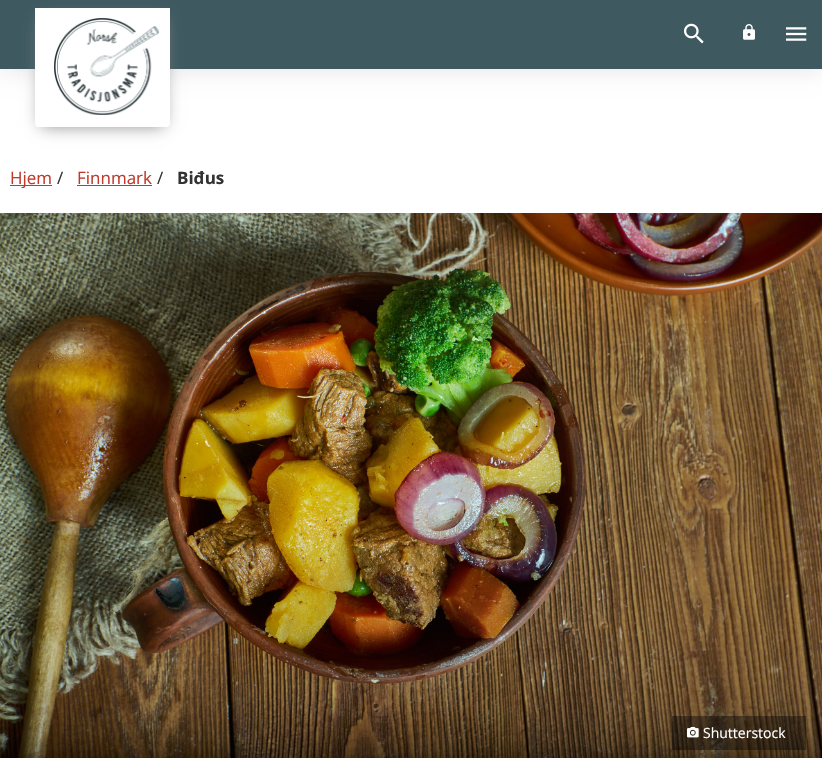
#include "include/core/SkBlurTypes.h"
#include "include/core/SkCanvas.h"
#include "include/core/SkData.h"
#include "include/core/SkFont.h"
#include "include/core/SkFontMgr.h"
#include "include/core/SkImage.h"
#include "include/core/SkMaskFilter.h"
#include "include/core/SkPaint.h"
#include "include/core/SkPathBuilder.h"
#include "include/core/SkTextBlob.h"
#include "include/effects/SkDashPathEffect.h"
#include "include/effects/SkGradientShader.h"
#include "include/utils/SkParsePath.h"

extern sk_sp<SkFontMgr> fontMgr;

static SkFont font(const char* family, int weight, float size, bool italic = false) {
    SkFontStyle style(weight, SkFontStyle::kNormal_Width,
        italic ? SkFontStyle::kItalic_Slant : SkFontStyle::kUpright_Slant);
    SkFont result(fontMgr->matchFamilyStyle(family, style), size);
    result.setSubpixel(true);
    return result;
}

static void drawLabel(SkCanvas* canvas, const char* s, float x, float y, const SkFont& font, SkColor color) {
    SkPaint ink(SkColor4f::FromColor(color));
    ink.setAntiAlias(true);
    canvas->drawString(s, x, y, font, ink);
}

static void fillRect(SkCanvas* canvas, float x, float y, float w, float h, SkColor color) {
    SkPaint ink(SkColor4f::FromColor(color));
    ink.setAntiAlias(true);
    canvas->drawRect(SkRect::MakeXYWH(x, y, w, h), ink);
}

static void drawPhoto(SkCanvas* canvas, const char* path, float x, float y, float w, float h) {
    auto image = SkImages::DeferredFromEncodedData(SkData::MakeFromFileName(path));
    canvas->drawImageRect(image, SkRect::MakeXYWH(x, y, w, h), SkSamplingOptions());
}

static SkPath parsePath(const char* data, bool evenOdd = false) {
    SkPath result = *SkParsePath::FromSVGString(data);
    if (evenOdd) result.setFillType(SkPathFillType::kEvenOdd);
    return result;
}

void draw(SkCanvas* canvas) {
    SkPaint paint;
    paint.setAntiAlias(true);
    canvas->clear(0xFFFFFFFF);
    paint.setColor(0x1A000000);
    paint.setMaskFilter(SkMaskFilter::MakeBlur(kNormal_SkBlurStyle, 11.5f));
    canvas->drawRect(SkRect::MakeXYWH(0, 1, 822, 69), paint);
    paint.setMaskFilter(nullptr);
    fillRect(canvas, 0, 0, 822, 69, 0xFF3E5960);
    paint.setColor(0xFF888888);
    paint.setMaskFilter(SkMaskFilter::MakeBlur(kNormal_SkBlurStyle, 8));
    canvas->drawRect(SkRect::MakeXYWH(41, 19, 123, 107), paint);
    paint.setMaskFilter(nullptr);
    paint.setColor(0xFFFFFFFF);
    canvas->drawPath(parsePath("M35 8H170V124C170 125.5 168.5 127 167 127H38C36.5 127 35 125.5 35 124Z"), paint);
    drawPhoto(canvas, "assets/img1.png", 54, 18, 105, 97);
    drawPhoto(canvas, "assets/img2.png", 684, 23, 20, 21);
    drawPhoto(canvas, "assets/img3.png", 743, 24, 12, 16);
    drawPhoto(canvas, "assets/img4.png", 786, 27, 21, 14);
    fillRect(canvas, 10, 185, 42, 1, 0xFFC0392B);
    SkFont font1 = font("Open Sans", 400, 17);
    drawLabel(canvas, "Hjem", 10, 184, font1, 0xFFC0392B);
    drawLabel(canvas, "/", 57, 184, font1, 0xFF333333);
    drawLabel(canvas, "Finnmark", 77, 184, font1, 0xFFC0392B);
    fillRect(canvas, 77, 185, 75, 1, 0xFFC0392B);
    drawLabel(canvas, "/", 157, 184, font1, 0xFF333333);
    SkFont font2 = font("Open Sans", 700, 17);
    drawLabel(canvas, "Biđus", 177, 184, font2, 0xFF333333);
    drawPhoto(canvas, "assets/img5.png", 0, 213, 822, 545);
    fillRect(canvas, 672, 716, 134, 34, 0x66000000);
    drawPhoto(canvas, "assets/img6.png", 687, 726, 12, 12);
    SkFont font3 = font("Open Sans", 400, 14);
    drawLabel(canvas, "Shutterstock", 703, 738, font3, 0xFFFFFFFF);
}
